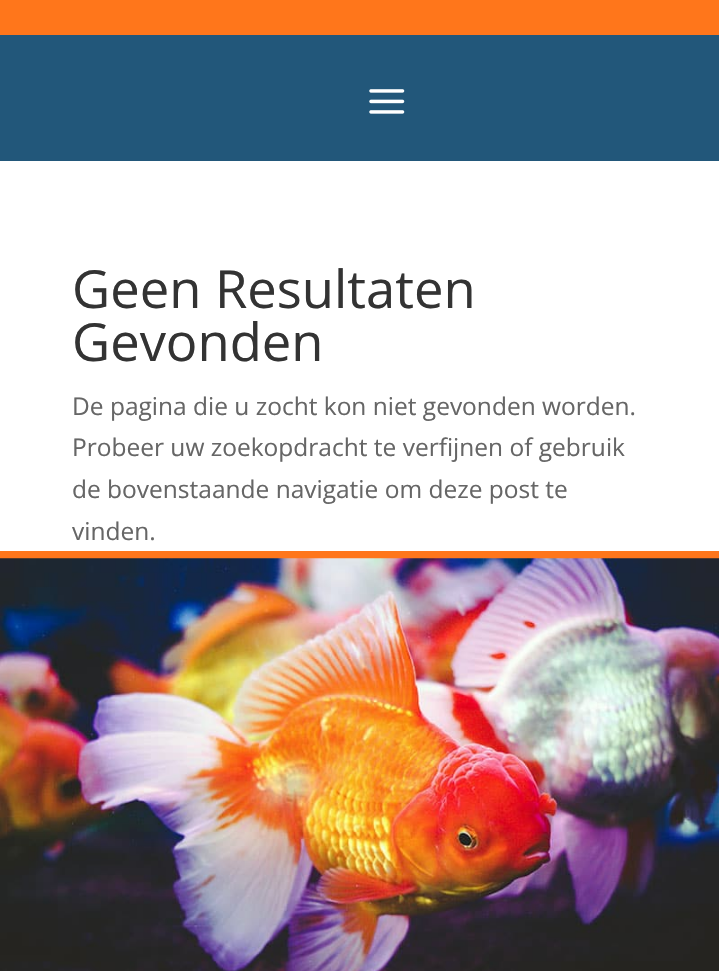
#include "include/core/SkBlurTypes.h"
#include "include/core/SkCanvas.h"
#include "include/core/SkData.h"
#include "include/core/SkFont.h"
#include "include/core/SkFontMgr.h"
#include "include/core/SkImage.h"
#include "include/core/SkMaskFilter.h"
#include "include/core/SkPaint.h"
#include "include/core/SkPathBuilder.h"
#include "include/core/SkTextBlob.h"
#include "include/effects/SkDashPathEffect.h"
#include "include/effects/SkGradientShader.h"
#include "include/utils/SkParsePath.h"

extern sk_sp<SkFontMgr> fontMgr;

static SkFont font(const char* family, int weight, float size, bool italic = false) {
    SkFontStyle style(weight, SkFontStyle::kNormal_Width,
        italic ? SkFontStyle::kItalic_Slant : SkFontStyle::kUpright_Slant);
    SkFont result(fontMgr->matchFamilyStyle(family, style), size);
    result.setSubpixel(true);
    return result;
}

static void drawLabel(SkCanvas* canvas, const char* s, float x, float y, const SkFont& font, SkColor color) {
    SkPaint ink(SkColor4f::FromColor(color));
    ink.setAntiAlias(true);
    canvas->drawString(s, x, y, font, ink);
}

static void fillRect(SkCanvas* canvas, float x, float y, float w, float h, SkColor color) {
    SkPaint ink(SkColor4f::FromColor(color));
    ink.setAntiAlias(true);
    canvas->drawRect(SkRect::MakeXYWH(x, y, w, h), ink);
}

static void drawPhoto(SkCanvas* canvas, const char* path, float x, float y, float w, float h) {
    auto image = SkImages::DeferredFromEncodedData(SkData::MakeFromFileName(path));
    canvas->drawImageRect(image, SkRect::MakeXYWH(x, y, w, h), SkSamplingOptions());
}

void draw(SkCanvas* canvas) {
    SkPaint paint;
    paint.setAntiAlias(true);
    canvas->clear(0xFFFF761B);
    fillRect(canvas, 0, 35, 719, 126, 0xFF22577A);
    drawPhoto(canvas, "assets/img1.png", 369, 89, 36, 25);
    fillRect(canvas, 0, 161, 719, 390, 0xFFFFFFFF);
    SkFont font1 = font("Open Sans", 400, 52.5f);
    drawLabel(canvas, "Geen Resultaten", 72, 308, font1, 0xFF333333);
    drawLabel(canvas, "Gevonden", 72, 361, font1, 0xFF333333);
    SkFont font2 = font("Open Sans", 400, 24.5f);
    drawLabel(canvas, "De pagina die u zocht kon niet gevonden worden.", 72, 415, font2, 0xFF666666);
    drawLabel(canvas, "Probeer uw zoekopdracht te verfijnen of gebruik", 72, 456, font2, 0xFF666666);
    drawLabel(canvas, "de bovenstaande navigatie om deze post te", 72, 498, font2, 0xFF666666);
    drawLabel(canvas, "vinden.", 72, 540, font2, 0xFF666666);
    drawPhoto(canvas, "assets/img2.png", 0, 558, 719, 413);
}
